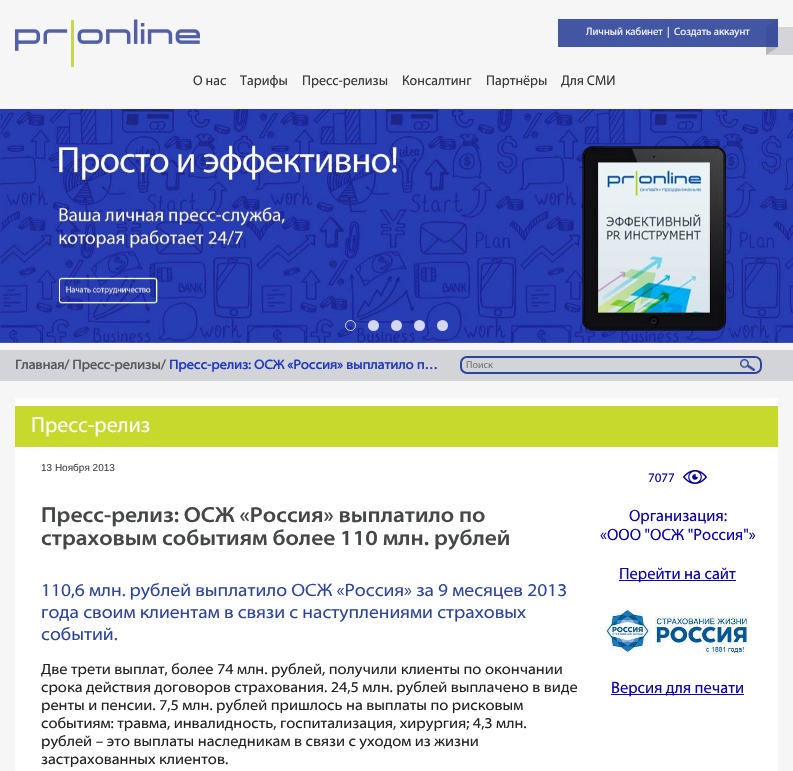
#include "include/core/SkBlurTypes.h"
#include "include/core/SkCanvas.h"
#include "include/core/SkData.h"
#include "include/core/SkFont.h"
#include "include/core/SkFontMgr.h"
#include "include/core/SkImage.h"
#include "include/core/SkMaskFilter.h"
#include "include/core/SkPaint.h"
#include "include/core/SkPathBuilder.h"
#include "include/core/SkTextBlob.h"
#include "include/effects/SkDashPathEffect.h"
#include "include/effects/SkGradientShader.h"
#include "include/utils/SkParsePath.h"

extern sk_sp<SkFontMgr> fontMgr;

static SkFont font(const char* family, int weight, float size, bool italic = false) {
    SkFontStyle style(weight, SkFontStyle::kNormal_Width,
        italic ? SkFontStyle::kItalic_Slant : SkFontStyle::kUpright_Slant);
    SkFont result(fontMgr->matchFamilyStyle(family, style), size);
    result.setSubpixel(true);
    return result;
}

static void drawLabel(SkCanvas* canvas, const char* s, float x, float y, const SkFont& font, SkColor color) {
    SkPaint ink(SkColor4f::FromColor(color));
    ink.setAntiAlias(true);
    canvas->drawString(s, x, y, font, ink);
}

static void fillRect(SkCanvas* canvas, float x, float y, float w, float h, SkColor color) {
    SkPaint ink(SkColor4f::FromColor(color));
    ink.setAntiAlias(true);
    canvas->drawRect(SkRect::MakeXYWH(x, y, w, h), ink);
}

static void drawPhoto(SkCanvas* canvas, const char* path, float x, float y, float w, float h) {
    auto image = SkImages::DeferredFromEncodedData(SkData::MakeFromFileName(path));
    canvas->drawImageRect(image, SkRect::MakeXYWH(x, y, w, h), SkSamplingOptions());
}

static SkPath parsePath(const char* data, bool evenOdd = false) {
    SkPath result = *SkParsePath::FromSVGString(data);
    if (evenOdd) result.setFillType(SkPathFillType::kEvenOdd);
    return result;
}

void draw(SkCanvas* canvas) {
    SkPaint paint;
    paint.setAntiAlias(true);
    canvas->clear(0xFFF6F6F7);
    fillRect(canvas, 766, 27, 27, 28, 0xFFD4D4D9);
    drawPhoto(canvas, "assets/img1.png", 15, 19, 185, 48);
    paint.setColor(0xFFBABABA);
    canvas->drawPath(parsePath("M778 27H766L778 19Z"), paint);
    paint.setColor(0xFFB3B4B8);
    canvas->drawPath(parsePath("M766 55V27H778V47Z"), paint);
    fillRect(canvas, 558, 19, 220, 28, 0xE62D449A);
    SkFont font1 = font("Myriad", 400, 10.75f);
    drawLabel(canvas, "Личный кабинет", 586, 35, font1, 0xFFFAFBFF);
    drawLabel(canvas, "|", 667, 35, font1, 0xFFFAFBFF);
    drawLabel(canvas, "Создать аккаунт", 674, 35, font1, 0xFFFAFBFF);
    SkFont font2 = font("Myriad", 400, 14);
    drawLabel(canvas, "О нас", 193, 85, font2, 0xFF373737);
    drawLabel(canvas, "Тарифы", 240, 85, font2, 0xFF373737);
    drawLabel(canvas, "Пресс-релизы", 302, 85, font2, 0xFF373737);
    drawLabel(canvas, "Консалтинг", 402, 85, font2, 0xFF373737);
    drawLabel(canvas, "Партнёры", 486, 85, font2, 0xFF373737);
    drawLabel(canvas, "Для СМИ", 561, 85, font2, 0xFF373737);
    drawPhoto(canvas, "assets/img2.png", 0, 109, 793, 234);
    paint.setStroke(true);
    paint.setStrokeWidth(1);
    paint.setColor(0xCCFFFFFF);
    canvas->drawCircle(350.5f, 325.5f, 5, paint);
    paint.setStroke(false);
    canvas->drawCircle(373.5f, 325.5f, 5.5f, paint);
    canvas->drawCircle(396.5f, 325.5f, 5.5f, paint);
    canvas->drawCircle(419.5f, 325.5f, 5.5f, paint);
    paint.setColor(0xFFD4D8F0);
    canvas->drawCircle(442.5f, 325.5f, 5.5f, paint);
    fillRect(canvas, 0, 350, 793, 31, 0xFFD3D4D8);
    SkFont font3 = font("Myriad", 700, 13.25f);
    drawLabel(canvas, "Главная/ Пресс-релизы/", 15, 369, font3, 0xFF595959);
    drawLabel(canvas, "Пресс-релиз: ОСЖ «Россия» выплатило п…", 169, 369, font3, 0xFF1F39C1);
    paint.setStroke(true);
    paint.setStrokeWidth(2);
    paint.setColor(0xFF2D449C);
    canvas->drawRoundRect(SkRect::MakeXYWH(461, 357, 300, 16), 6, 6, paint);
    SkFont font4 = font("Myriad", 400, 10);
    drawLabel(canvas, "Поиск", 466, 368, font4, 0xFF757575);
    drawPhoto(canvas, "assets/img3.png", 740, 359, 15, 12);
    fillRect(canvas, 15, 398, 763, 373, 0xFFFFFFFF);
    fillRect(canvas, 15, 406, 763, 41, 0xFFC6D92C);
    SkFont font5 = font("Myriad", 400, 21.75f);
    drawLabel(canvas, "Пресс-релиз", 31, 432, font5, 0xFFFAFBFF);
    SkFont font6 = font("Liberation Sans", 400, 10);
    drawLabel(canvas, "13 Ноября 2013", 41, 471, font6, 0xFF434747);
    SkFont font7 = font("Myriad", 400, 13);
    drawLabel(canvas, "7077", 648, 482, font7, 0xFF0A02AB);
    drawPhoto(canvas, "assets/img4.png", 683, 470, 24, 14);
    SkFont font8 = font("Myriad", 600, 21.7f);
    drawLabel(canvas, "Пресс-релиз: ОСЖ «Россия» выплатило по", 41, 522, font8, 0xFF434747);
    drawLabel(canvas, "страховым событиям более 110 млн. рублей", 41, 545, font8, 0xFF434747);
    SkFont font9 = font("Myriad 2", 400, 18);
    drawLabel(canvas, "110,6 млн. рублей выплатило ОСЖ «Россия» за 9 месяцев 2013", 41, 596, font9, 0xFF2D449C);
    drawLabel(canvas, "года своим клиентам в связи с наступлениями страховых", 41, 618, font9, 0xFF2D449C);
    drawLabel(canvas, "событий.", 41, 640, font9, 0xFF2D449C);
    SkFont font10 = font("Myriad 2", 400, 15);
    drawLabel(canvas, "Две трети выплат, более 74 млн. рублей, получили клиенты по окончании", 41, 674, font10, 0xFF222222);
    drawLabel(canvas, "срока действия договоров страхования. 24,5 млн. рублей выплачено в виде", 41, 692, font10, 0xFF222222);
    drawLabel(canvas, "ренты и пенсии. 7,5 млн. рублей пришлось на выплаты по рисковым", 41, 710, font10, 0xFF222222);
    drawLabel(canvas, "событиям: травма, инвалидность, госпитализация, хирургия; 4,3 млн.", 41, 728, font10, 0xFF222222);
    drawLabel(canvas, "рублей – это выплаты наследникам в связи с уходом из жизни", 41, 746, font10, 0xFF222222);
    drawLabel(canvas, "застрахованных клиентов.", 41, 764, font10, 0xFF222222);
    SkFont font11 = font("Myriad", 400, 16.5f);
    drawLabel(canvas, "Организация:", 629, 521, font11, 0xFF0A02AB);
    drawLabel(canvas, "«ООО \"ОСЖ \"Россия\"»", 600, 540, font11, 0xFF0A02AB);
    fillRect(canvas, 619, 580, 117, 1, 0xFF0A02AB);
    drawLabel(canvas, "Перейти на сайт", 619, 579, font11, 0xFF0A02AB);
    drawPhoto(canvas, "assets/img5.png", 606, 609, 144, 46);
    fillRect(canvas, 611, 694, 133, 1, 0xFF0A02AB);
    drawLabel(canvas, "Версия для печати", 611, 693, font11, 0xFF0A02AB);
}
